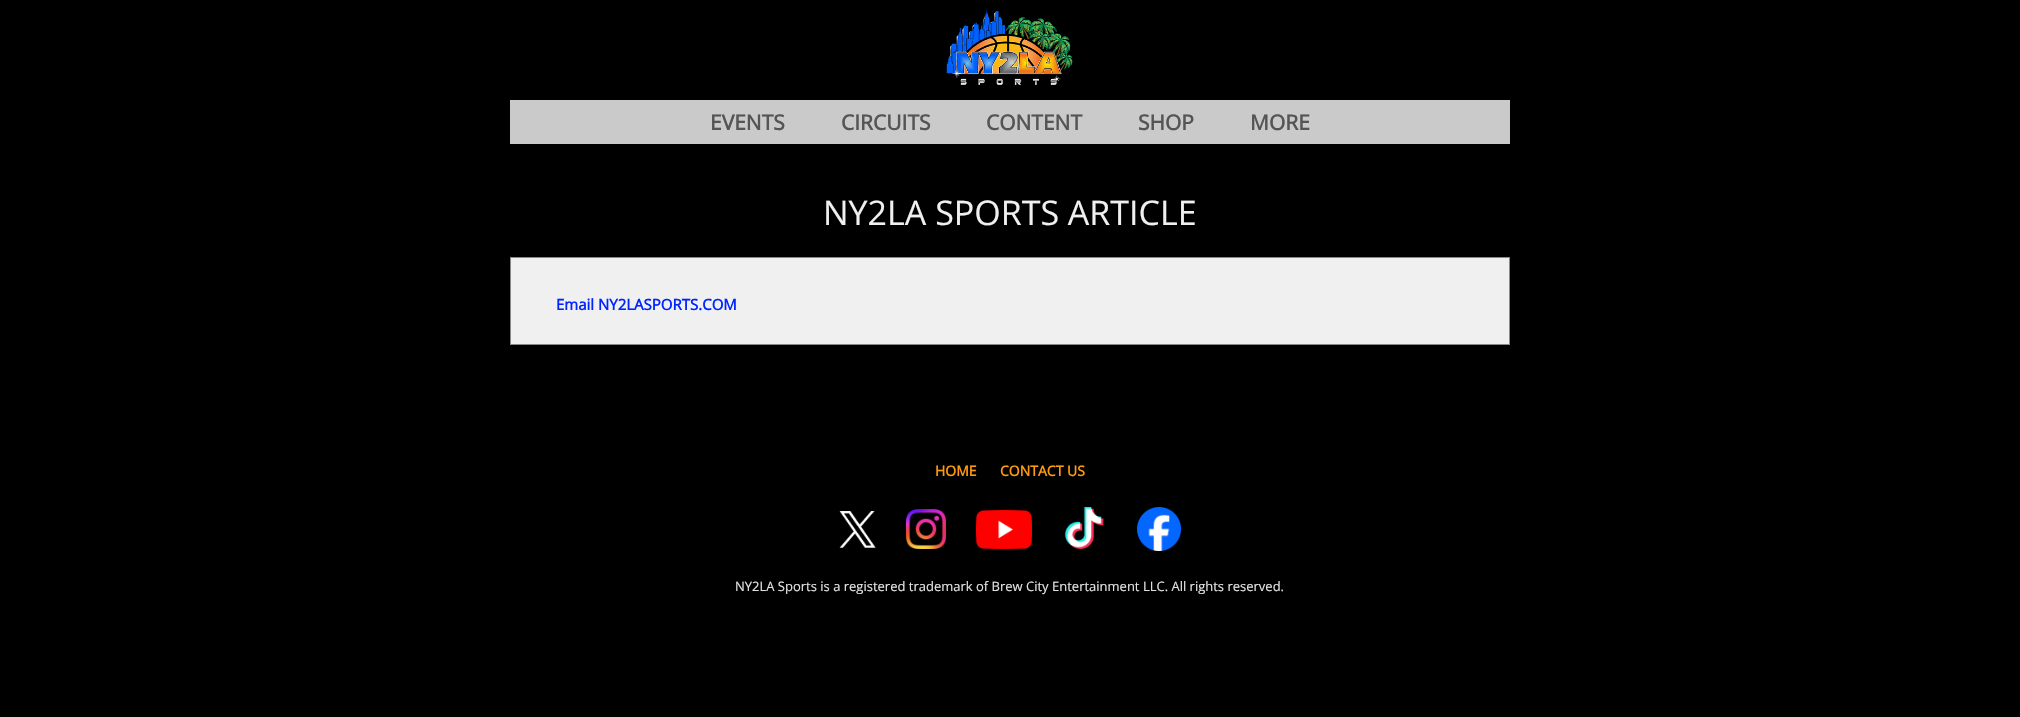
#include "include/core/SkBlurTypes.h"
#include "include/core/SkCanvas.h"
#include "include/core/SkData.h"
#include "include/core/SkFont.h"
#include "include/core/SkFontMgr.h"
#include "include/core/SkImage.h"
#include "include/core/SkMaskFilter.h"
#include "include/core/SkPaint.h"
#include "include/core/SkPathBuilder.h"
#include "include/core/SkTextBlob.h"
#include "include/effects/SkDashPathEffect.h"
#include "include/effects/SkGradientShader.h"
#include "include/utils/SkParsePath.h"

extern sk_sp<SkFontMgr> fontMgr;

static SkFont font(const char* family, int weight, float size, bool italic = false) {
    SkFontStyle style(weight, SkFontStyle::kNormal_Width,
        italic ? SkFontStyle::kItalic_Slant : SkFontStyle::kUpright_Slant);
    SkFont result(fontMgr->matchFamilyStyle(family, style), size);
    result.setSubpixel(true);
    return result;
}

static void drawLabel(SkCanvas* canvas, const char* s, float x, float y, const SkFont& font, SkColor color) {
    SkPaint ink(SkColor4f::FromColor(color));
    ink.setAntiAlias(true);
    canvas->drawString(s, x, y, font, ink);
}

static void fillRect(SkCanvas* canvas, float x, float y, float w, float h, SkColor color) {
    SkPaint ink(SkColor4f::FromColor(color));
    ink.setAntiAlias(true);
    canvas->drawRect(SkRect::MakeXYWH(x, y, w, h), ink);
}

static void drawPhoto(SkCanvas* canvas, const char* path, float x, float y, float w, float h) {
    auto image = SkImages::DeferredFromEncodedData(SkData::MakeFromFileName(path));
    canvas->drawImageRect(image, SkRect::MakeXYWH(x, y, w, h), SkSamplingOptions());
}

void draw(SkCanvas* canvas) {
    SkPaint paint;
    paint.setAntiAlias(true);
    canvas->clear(0xFF000000);
    drawPhoto(canvas, "assets/img1.png", 946, 8, 127, 77);
    fillRect(canvas, 510, 100, 1000, 44, 0xFFCACACA);
    SkFont font1 = font("Open Sans", 700, 21);
    drawLabel(canvas, "EVENTS", 710, 130, font1, 0xFF555555);
    drawLabel(canvas, "CIRCUITS", 841, 130, font1, 0xFF555555);
    drawLabel(canvas, "CONTENT", 986, 130, font1, 0xFF555555);
    drawLabel(canvas, "SHOP", 1138, 130, font1, 0xFF555555);
    drawLabel(canvas, "MORE", 1250, 130, font1, 0xFF555555);
    SkFont font2 = font("Open Sans", 400, 34);
    drawLabel(canvas, "NY2LA SPORTS ARTICLE", 823, 225, font2, 0xFFF0F0F0);
    paint.setColor(0xFFF0F0F0);
    canvas->drawRect(SkRect::MakeXYWH(510.5f, 257.5f, 999, 87), paint);
    paint.setStroke(true);
    paint.setStrokeWidth(1);
    paint.setColor(0xFF888888);
    canvas->drawRect(SkRect::MakeXYWH(510.5f, 257.5f, 999, 87), paint);
    SkFont font3 = font("Open Sans", 700, 15);
    drawLabel(canvas, "Email NY2LASPORTS.COM", 556, 310, font3, 0xFF0125FF);
    SkFont font4 = font("Open Sans", 700, 14);
    drawLabel(canvas, "HOME", 935, 476, font4, 0xFFFF990D);
    drawLabel(canvas, "CONTACT US", 1000, 476, font4, 0xFFFF990D);
    drawPhoto(canvas, "assets/img2.png", 839, 511, 37, 37);
    drawPhoto(canvas, "assets/img3.png", 906, 509, 40, 40);
    drawPhoto(canvas, "assets/img4.png", 976, 510, 56, 39);
    drawPhoto(canvas, "assets/img5.png", 1064, 507, 40, 42);
    drawPhoto(canvas, "assets/img6.png", 1137, 507, 44, 44);
    SkFont font5 = font("Open Sans", 400, 13);
    drawLabel(canvas, "NY2LA Sports is a registered trademark of Brew City Entertainment LLC. All rights reserved.", 735, 591, font5, 0xFFE2E2E2);
}
